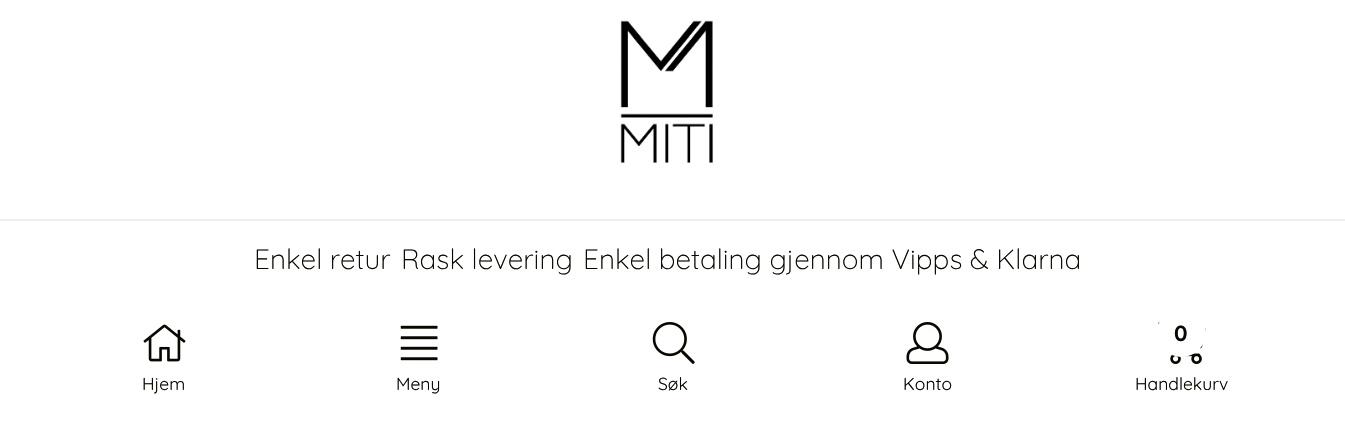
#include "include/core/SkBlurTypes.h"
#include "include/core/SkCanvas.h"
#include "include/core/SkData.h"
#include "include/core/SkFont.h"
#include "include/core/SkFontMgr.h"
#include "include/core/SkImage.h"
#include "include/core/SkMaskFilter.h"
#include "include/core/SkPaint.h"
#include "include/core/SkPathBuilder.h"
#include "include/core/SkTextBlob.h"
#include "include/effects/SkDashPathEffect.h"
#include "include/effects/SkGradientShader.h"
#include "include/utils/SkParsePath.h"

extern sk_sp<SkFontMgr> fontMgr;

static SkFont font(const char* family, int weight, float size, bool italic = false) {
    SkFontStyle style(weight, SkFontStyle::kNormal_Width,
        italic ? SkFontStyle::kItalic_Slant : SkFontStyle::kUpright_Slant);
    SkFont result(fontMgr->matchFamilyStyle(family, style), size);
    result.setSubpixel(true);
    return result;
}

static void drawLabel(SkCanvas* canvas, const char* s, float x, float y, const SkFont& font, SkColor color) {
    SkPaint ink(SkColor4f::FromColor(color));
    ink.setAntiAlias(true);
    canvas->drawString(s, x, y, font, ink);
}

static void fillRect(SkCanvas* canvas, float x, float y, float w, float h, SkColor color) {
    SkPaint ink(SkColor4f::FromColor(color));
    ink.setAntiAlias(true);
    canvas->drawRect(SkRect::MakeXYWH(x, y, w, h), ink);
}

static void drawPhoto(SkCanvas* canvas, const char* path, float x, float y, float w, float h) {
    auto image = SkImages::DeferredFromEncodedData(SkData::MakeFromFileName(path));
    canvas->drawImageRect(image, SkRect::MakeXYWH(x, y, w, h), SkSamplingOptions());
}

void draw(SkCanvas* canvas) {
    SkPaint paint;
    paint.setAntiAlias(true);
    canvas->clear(0xFFFFFFFF);
    drawPhoto(canvas, "assets/img1.png", 620, 20, 93, 143);
    fillRect(canvas, 0, 219, 1345, 2, 0xFFEEEEEE);
    SkFont font1 = font("Quicksand", 300, 28);
    drawLabel(canvas, "Enkel retur", 254, 269, font1, 0xFF0A0600);
    drawLabel(canvas, "Rask levering", 401, 269, font1, 0xFF0A0600);
    drawLabel(canvas, "Enkel betaling gjennom Vipps & Klarna", 583, 269, font1, 0xFF0A0600);
    drawPhoto(canvas, "assets/img2.png", 143, 324, 43, 38);
    SkFont font2 = font("Quicksand", 400, 17.5f);
    drawLabel(canvas, "Hjem", 142, 390, font2, 0xFF0A0600);
    drawPhoto(canvas, "assets/img3.png", 400, 325, 38, 36);
    drawLabel(canvas, "Meny", 396, 390, font2, 0xFF0A0600);
    drawPhoto(canvas, "assets/img4.png", 652, 322, 43, 42);
    drawLabel(canvas, "Søk", 658, 390, font2, 0xFF0A0600);
    drawPhoto(canvas, "assets/img5.png", 906, 322, 43, 42);
    drawLabel(canvas, "Konto", 903, 390, font2, 0xFF0A0600);
    drawPhoto(canvas, "assets/img6.png", 1158, 322, 48, 42);
    paint.setColor(0xFFFFFFFF);
    canvas->drawCircle(1181.5f, 332.5f, 22.5f, paint);
    paint.setStroke(true);
    paint.setStrokeWidth(4);
    canvas->drawCircle(1181.5f, 332.5f, 22.5f, paint);
    SkFont font3 = font("Quicksand", 700, 22);
    drawLabel(canvas, "0", 1174, 341, font3, 0xFF0A0600);
    drawLabel(canvas, "Handlekurv", 1135, 390, font2, 0xFF0A0600);
}
